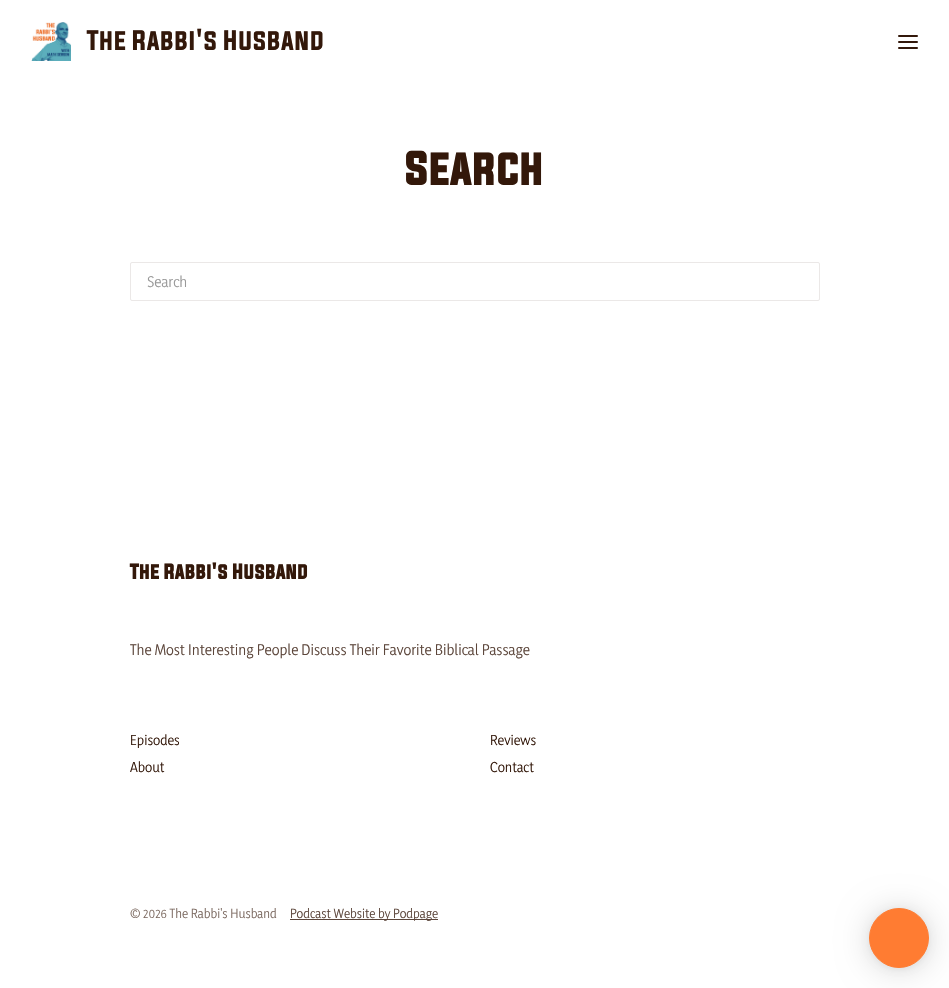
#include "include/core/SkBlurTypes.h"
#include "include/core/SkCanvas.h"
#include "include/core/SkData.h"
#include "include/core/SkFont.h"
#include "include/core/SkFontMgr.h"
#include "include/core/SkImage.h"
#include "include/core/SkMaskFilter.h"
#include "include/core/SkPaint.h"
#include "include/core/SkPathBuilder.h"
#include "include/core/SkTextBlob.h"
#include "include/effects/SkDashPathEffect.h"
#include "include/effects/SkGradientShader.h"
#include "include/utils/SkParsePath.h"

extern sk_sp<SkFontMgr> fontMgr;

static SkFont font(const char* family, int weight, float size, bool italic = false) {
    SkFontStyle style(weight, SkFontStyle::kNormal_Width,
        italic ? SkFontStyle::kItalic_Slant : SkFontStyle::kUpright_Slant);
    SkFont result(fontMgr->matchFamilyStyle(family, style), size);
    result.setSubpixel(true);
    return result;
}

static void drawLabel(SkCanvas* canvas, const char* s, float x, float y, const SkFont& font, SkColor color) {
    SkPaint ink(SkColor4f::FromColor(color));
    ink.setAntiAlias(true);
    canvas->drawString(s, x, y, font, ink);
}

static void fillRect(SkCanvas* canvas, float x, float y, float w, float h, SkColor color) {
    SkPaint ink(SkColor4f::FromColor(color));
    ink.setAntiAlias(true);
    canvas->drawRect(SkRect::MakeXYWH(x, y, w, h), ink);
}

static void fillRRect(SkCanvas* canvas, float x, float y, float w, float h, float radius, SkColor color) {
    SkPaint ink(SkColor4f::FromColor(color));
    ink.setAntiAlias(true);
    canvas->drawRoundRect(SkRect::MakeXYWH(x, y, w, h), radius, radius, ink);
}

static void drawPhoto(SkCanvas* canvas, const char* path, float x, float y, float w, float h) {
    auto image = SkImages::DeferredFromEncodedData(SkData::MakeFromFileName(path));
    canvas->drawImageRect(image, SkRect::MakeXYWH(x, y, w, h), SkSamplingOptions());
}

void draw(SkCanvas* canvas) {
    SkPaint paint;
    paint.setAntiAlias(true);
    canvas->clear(0xFFFFFFFF);
    drawPhoto(canvas, "assets/img1.png", 31, 22, 40, 39);
    SkFont font1 = font("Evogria", 400, 24);
    drawLabel(canvas, "The Rabbi's Husband", 87, 50, font1, 0xFF33180A);
    fillRRect(canvas, 898, 35, 20, 2, 1, 0xFF33180A);
    fillRRect(canvas, 898, 41, 20, 2, 1, 0xFF33180A);
    fillRRect(canvas, 898, 47, 20, 2, 1, 0xFF33180A);
    SkFont font2 = font("Evogria", 700, 40);
    drawLabel(canvas, "Search", 405, 185, font2, 0xFF33180A);
    paint.setStroke(true);
    paint.setStrokeWidth(1);
    paint.setColor(0xFFEBE8E7);
    canvas->drawRoundRect(SkRect::MakeXYWH(130.5f, 262.5f, 689, 38), 1.5f, 1.5f, paint);
    SkFont font3 = font("Yaldevi", 400, 14);
    drawLabel(canvas, "Search", 147, 287, font3, 0xFF999999);
    SkFont font4 = font("Evogria", 700, 18);
    drawLabel(canvas, "The Rabbi's Husband", 130, 579, font4, 0xFF33180A);
    drawLabel(canvas, "The Most Interesting People Discuss Their Favorite Biblical Passage", 130, 655, font3, 0xFF5C463B);
    SkFont font5 = font("Yaldevi", 400, 13);
    drawLabel(canvas, "Episodes", 130, 745, font5, 0xFF33180A);
    drawLabel(canvas, "About", 130, 772, font5, 0xFF33180A);
    drawLabel(canvas, "Reviews", 490, 745, font5, 0xFF33180A);
    drawLabel(canvas, "Contact", 490, 772, font5, 0xFF33180A);
    SkFont font6 = font("Yaldevi", 400, 12);
    drawLabel(canvas, "© 2026 The Rabbi's Husband", 130, 918, font6, 0xFF7D6B62);
    fillRect(canvas, 290, 919, 148, 1, 0xFF5C463B);
    drawLabel(canvas, "Podcast Website by Podpage", 290, 918, font6, 0xFF5C463B);
    paint.setStroke(false);
    paint.setColor(0x29000000);
    paint.setMaskFilter(SkMaskFilter::MakeBlur(kNormal_SkBlurStyle, 16));
    canvas->drawRoundRect(SkRect::MakeXYWH(869, 910, 60, 60), 30, 30, paint);
    paint.setMaskFilter(nullptr);
    paint.setColor(0x0F000000);
    paint.setMaskFilter(SkMaskFilter::MakeBlur(kNormal_SkBlurStyle, 3));
    canvas->drawRoundRect(SkRect::MakeXYWH(869, 909, 60, 60), 30, 30, paint);
    paint.setMaskFilter(nullptr);
    paint.setColor(0xFFFF7C32);
    canvas->drawCircle(899, 938, 29.5f, paint);
    paint.setStroke(true);
    canvas->drawCircle(899, 938, 29.5f, paint);
}
